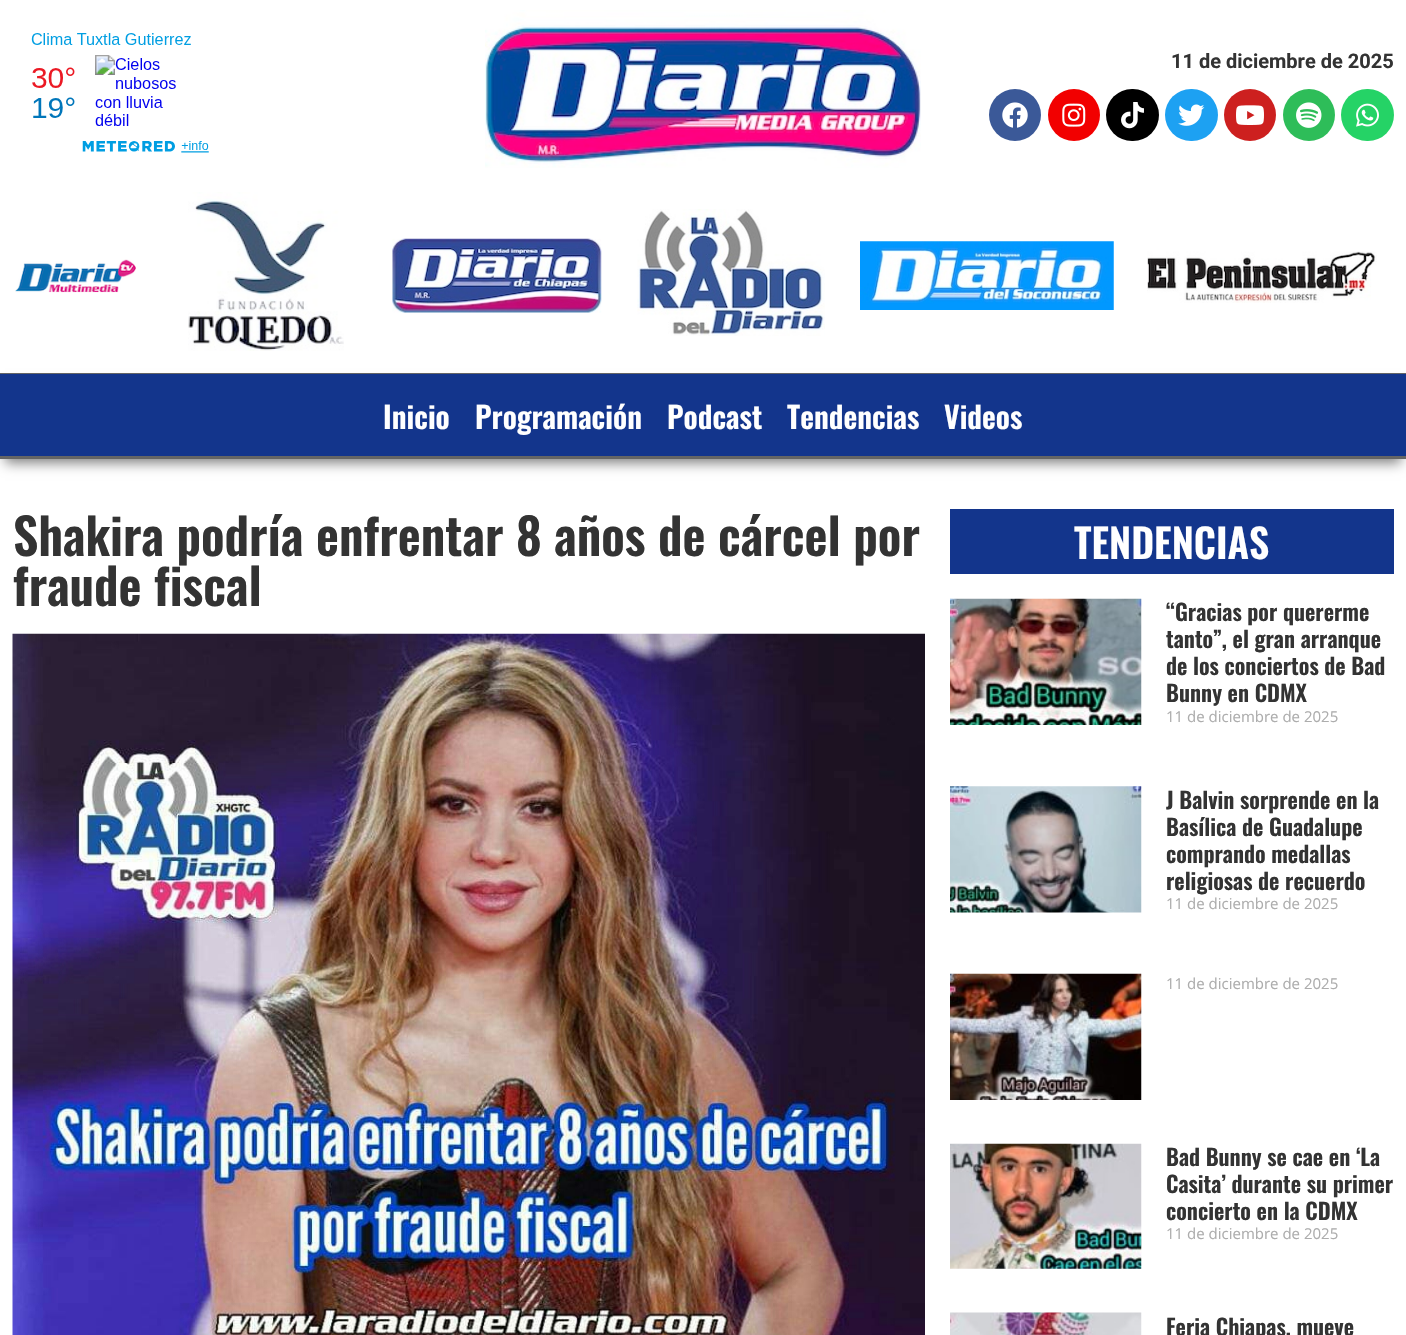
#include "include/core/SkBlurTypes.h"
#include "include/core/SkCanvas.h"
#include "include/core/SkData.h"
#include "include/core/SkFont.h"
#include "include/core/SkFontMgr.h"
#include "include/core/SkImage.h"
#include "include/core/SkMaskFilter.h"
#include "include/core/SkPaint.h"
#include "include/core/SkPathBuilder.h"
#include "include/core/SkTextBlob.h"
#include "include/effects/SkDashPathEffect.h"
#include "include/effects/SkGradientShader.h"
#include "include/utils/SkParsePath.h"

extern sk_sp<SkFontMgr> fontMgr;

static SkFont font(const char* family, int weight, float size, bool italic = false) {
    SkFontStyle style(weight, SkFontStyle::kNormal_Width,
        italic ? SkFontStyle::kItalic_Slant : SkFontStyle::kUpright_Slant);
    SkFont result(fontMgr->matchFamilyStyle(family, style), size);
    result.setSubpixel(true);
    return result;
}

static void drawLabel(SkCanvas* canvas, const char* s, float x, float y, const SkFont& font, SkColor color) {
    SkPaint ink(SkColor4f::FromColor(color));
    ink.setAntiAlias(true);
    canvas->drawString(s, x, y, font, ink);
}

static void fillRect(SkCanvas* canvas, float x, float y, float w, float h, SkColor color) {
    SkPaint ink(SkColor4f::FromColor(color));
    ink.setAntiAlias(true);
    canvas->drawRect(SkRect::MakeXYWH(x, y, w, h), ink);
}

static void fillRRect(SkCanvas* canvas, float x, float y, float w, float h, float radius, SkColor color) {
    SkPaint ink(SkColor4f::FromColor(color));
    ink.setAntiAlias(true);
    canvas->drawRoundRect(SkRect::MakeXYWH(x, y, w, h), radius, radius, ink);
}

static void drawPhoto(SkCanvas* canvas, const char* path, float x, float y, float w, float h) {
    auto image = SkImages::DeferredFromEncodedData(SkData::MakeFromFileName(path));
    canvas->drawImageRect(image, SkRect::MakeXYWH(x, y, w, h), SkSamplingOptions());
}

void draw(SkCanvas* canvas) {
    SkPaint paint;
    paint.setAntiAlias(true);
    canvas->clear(0xFFFFFFFF);
    drawPhoto(canvas, "assets/img1.png", 31, 33, 178, 120);
    drawPhoto(canvas, "assets/img2.png", 485, 10, 436, 158);
    SkFont font1 = font("Roboto", 700, 20);
    drawLabel(canvas, "11 de diciembre de 2025", 1171, 68, font1, 0xFF333333);
    paint.setColor(0xFF3B5998);
    canvas->drawCircle(1015, 115, 26, paint);
    drawPhoto(canvas, "assets/img3.png", 1002, 102, 26, 26);
    paint.setColor(0xFFF20000);
    canvas->drawCircle(1074, 115, 26, paint);
    drawPhoto(canvas, "assets/img4.png", 1062, 103, 24, 24);
    fillRRect(canvas, 1106, 89, 53, 52, 26, 0xFF000000);
    drawPhoto(canvas, "assets/img5.png", 1121, 102, 23, 27);
    fillRRect(canvas, 1165, 89, 53, 52, 26, 0xFF1DA1F2);
    drawPhoto(canvas, "assets/img6.png", 1178, 104, 27, 22);
    paint.setColor(0xFFCD201F);
    canvas->drawCircle(1250, 115, 26, paint);
    drawPhoto(canvas, "assets/img7.png", 1236, 105, 28, 20);
    paint.setColor(0xFF2EBD59);
    canvas->drawCircle(1309, 115, 26, paint);
    drawPhoto(canvas, "assets/img8.png", 1296, 102, 26, 26);
    fillRRect(canvas, 1341, 89, 53, 52, 26, 0xFF25D366);
    drawPhoto(canvas, "assets/img9.png", 1356, 103, 23, 24);
    drawPhoto(canvas, "assets/img10.png", 15, 259, 121, 34);
    drawPhoto(canvas, "assets/img11.png", 188, 192, 156, 159);
    drawPhoto(canvas, "assets/img12.png", 392, 238, 210, 75);
    drawPhoto(canvas, "assets/img13.png", 637, 209, 188, 127);
    drawPhoto(canvas, "assets/img14.png", 860, 241, 254, 69);
    drawPhoto(canvas, "assets/img15.png", 1147, 251, 230, 52);
    paint.setColor(0x80000000);
    paint.setMaskFilter(SkMaskFilter::MakeBlur(kNormal_SkBlurStyle, 6));
    canvas->drawRect(SkRect::MakeXYWH(5, 386, 1396, 77), paint);
    paint.setMaskFilter(nullptr);
    fillRect(canvas, 0, 374, 1406, 82, 0xFF13358C);
    fillRect(canvas, 0, 373, 1406, 1, 0xFF656565);
    fillRect(canvas, 0, 456, 1406, 3, 0xFF656565);
    SkFont font2 = font("Oswald", 600, 30);
    drawLabel(canvas, "Inicio", 383, 429, font2, 0xFFFFFFFF);
    drawLabel(canvas, "Programación", 475, 429, font2, 0xFFFFFFFF);
    drawLabel(canvas, "Podcast", 667, 429, font2, 0xFFFFFFFF);
    drawLabel(canvas, "Tendencias", 787, 429, font2, 0xFFFFFFFF);
    drawLabel(canvas, "Videos", 944, 429, font2, 0xFFFFFFFF);
    SkFont font3 = font("Oswald", 600, 50);
    drawLabel(canvas, "Shakira podría enfrentar 8 años de cárcel por", 13, 556, font3, 0xFF333333);
    drawLabel(canvas, "fraude fiscal", 13, 606, font3, 0xFF333333);
    drawPhoto(canvas, "assets/img16.png", 12, 633, 913, 702);
    fillRect(canvas, 950, 509, 444, 65, 0xFF13358C);
    SkFont font4 = font("Oswald", 600, 40);
    drawLabel(canvas, "TENDENCIAS", 1074, 559, font4, 0xFFFFFFFF);
    drawPhoto(canvas, "assets/img17.png", 950, 598, 192, 127);
    SkFont font5 = font("Oswald", 600, 22.5f);
    drawLabel(canvas, "“Gracias por quererme", 1166, 621, font5, 0xFF333333);
    drawLabel(canvas, "tanto”, el gran arranque", 1166, 648, font5, 0xFF333333);
    drawLabel(canvas, "de los conciertos de Bad", 1166, 675, font5, 0xFF333333);
    drawLabel(canvas, "Bunny en CDMX", 1166, 702, font5, 0xFF333333);
    SkFont font6 = font("Open Sans", 400, 15);
    drawLabel(canvas, "11 de diciembre de 2025", 1166, 722, font6, 0xFFADADAD);
    drawPhoto(canvas, "assets/img18.png", 950, 786, 192, 127);
    drawLabel(canvas, "J Balvin sorprende en la", 1166, 809, font5, 0xFF333333);
    drawLabel(canvas, "Basílica de Guadalupe", 1166, 836, font5, 0xFF333333);
    drawLabel(canvas, "comprando medallas", 1166, 863, font5, 0xFF333333);
    drawLabel(canvas, "religiosas de recuerdo", 1166, 890, font5, 0xFF333333);
    drawLabel(canvas, "11 de diciembre de 2025", 1166, 909, font6, 0xFFADADAD);
    drawPhoto(canvas, "assets/img19.png", 950, 973, 192, 127);
    drawLabel(canvas, "11 de diciembre de 2025", 1166, 989, font6, 0xFFADADAD);
    drawPhoto(canvas, "assets/img20.png", 950, 1143, 192, 126);
    drawLabel(canvas, "Bad Bunny se cae en ‘La", 1166, 1166, font5, 0xFF333333);
    drawLabel(canvas, "Casita’ durante su primer", 1166, 1193, font5, 0xFF333333);
    drawLabel(canvas, "concierto en la CDMX", 1166, 1220, font5, 0xFF333333);
    drawLabel(canvas, "11 de diciembre de 2025", 1166, 1239, font6, 0xFFADADAD);
    drawPhoto(canvas, "assets/img21.png", 950, 1312, 192, 23);
    drawLabel(canvas, "Feria Chiapas, mueve", 1166, 1336, font5, 0xFF333333);
}
